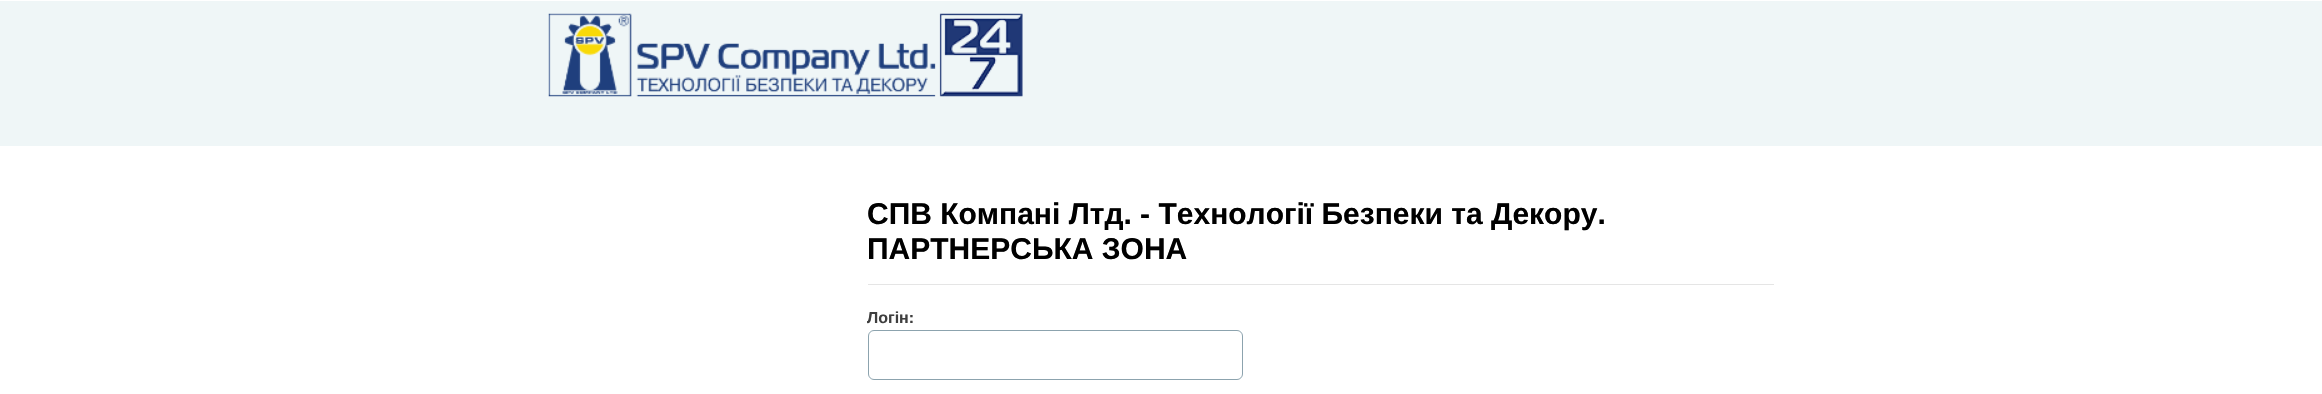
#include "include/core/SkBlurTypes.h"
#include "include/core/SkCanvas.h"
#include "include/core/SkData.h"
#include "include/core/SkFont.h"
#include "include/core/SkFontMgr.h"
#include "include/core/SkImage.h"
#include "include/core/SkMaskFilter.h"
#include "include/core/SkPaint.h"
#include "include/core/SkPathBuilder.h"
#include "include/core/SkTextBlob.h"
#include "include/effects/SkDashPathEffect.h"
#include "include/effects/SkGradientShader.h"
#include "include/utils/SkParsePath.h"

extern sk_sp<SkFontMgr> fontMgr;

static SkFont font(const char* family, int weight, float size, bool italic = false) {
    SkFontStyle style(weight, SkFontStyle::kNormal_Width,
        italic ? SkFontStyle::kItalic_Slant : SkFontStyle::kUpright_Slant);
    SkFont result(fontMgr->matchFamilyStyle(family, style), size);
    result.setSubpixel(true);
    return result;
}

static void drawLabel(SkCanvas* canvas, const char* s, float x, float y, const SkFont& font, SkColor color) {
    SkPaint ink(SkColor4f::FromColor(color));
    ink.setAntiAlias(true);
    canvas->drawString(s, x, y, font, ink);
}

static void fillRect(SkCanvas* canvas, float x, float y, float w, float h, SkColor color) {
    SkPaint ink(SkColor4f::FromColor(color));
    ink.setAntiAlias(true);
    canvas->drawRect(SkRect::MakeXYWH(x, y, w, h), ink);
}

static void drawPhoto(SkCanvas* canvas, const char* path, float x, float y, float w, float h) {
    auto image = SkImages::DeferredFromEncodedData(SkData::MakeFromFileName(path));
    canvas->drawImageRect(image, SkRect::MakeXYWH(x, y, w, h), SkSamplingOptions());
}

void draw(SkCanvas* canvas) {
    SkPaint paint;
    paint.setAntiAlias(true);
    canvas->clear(0xFFFFFFFF);
    fillRect(canvas, 0, 1, 2322, 145, 0xFFEFF6F7);
    drawPhoto(canvas, "assets/img1.png", 548, 13, 475, 84);
    fillRect(canvas, 868, 284, 906, 1, 0xFFE5E5E5);
    SkFont font1 = font("Liberation Sans", 700, 30);
    drawLabel(canvas, "СПВ Компані Лтд. - Технології Безпеки та Декору.", 867, 224, font1, 0xFF000000);
    drawLabel(canvas, "ПАРТНЕРСЬКА ЗОНА", 867, 259, font1, 0xFF000000);
    SkFont font2 = font("Liberation Sans", 700, 16);
    drawLabel(canvas, "Логін:", 867, 323, font2, 0xFF3F3F3F);
    paint.setStroke(true);
    paint.setStrokeWidth(1);
    paint.setColor(0xFF8CA3AE);
    canvas->drawRoundRect(SkRect::MakeXYWH(868.5f, 330.5f, 374, 49), 5.5f, 5.5f, paint);
}
